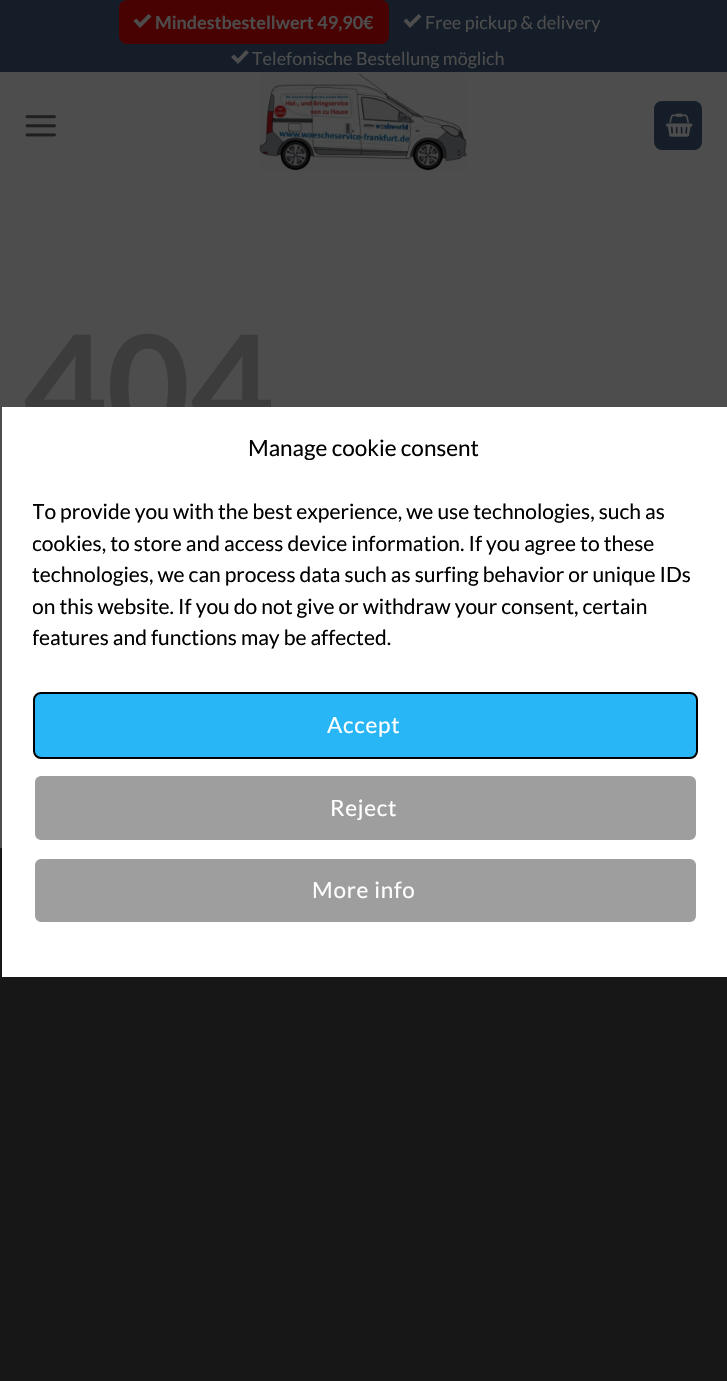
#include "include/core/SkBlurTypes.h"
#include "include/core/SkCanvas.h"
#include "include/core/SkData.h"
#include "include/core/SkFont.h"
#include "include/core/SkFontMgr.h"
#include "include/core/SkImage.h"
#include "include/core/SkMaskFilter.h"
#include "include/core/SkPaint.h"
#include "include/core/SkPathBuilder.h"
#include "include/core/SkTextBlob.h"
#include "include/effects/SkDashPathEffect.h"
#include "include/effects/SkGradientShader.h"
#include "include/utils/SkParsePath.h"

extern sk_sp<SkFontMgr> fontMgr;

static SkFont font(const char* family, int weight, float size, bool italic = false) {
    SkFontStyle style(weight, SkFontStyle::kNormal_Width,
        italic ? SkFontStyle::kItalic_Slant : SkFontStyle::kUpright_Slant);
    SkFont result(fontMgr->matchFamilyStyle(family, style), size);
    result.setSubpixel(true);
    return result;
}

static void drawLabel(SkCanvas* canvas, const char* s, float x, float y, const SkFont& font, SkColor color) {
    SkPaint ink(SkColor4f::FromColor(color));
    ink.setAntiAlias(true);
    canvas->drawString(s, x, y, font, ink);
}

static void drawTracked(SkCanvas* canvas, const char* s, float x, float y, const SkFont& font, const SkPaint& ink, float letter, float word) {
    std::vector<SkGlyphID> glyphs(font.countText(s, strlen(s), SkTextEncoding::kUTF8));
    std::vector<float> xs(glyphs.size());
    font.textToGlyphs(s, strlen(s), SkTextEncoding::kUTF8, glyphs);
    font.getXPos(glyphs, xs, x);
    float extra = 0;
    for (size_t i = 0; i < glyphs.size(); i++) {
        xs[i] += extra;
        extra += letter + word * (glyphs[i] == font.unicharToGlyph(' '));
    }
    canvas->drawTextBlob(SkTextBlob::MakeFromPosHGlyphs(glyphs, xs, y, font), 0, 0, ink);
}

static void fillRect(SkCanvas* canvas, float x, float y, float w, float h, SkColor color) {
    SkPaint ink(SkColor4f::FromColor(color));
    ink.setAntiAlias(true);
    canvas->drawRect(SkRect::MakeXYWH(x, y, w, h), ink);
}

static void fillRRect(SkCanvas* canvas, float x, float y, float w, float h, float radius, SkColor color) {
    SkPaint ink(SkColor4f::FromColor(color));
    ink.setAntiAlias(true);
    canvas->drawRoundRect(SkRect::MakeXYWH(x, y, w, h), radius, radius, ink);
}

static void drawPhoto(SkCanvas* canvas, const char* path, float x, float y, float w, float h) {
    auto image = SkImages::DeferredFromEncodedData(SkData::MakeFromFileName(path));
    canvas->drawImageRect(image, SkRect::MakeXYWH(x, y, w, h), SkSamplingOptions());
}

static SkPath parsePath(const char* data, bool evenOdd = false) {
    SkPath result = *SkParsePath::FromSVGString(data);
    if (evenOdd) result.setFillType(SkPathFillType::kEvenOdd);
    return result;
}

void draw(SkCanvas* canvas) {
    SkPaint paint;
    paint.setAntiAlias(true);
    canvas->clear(0xFF171717);
    fillRect(canvas, 0, 72, 727, 776, 0xFF4D4D4D);
    fillRect(canvas, 0, 0, 727, 72, 0xFF141D28);
    fillRRect(canvas, 119, 0, 270, 44, 8, 0xFF490202);
    paint.setColor(0xFF4D4D4D);
    canvas->drawPath(parsePath("M148.5 14L140 22.5L136.5 18.5L133.5 21L140 28L151.5 16.5Z"), paint);
    SkFont font1 = font("Lato", 700, 18);
    drawLabel(canvas, "Mindestbestellwert 49,90€", 155, 29, font1, 0xFF4D4D4D);
    canvas->drawPath(parsePath("M418.5 14L410 22.5L406.5 18.5L403.5 21L410 28L421.5 16.5Z"), paint);
    SkFont font2 = font("Lato", 400, 18);
    drawLabel(canvas, "Free pickup & delivery", 425, 29, font2, 0xFF4D4D4D);
    canvas->drawPath(parsePath("M246 50L238 58.5L234 54.5L231 57L238 64L249 52.5Z"), paint);
    drawLabel(canvas, "Telefonische Bestellung möglich", 252, 65, font2, 0xFF4D4D4D);
    drawPhoto(canvas, "assets/img1.png", 25, 115, 31, 22);
    drawPhoto(canvas, "assets/img2.png", 259, 73, 208, 98);
    fillRRect(canvas, 654, 101, 48, 49, 8, 0xFF141D28);
    drawPhoto(canvas, "assets/img3.png", 666, 113, 27, 24);
    SkFont font3 = font("Lato", 700, 144);
    drawLabel(canvas, "404", 23, 439, font3, 0xFF3C3C3C);
    fillRect(canvas, 2, 407, 725, 570, 0xFFFFFFFF);
    SkFont font4 = font("Lato", 400, 22.5f);
    drawLabel(canvas, "Manage cookie consent", 248, 456, font4, 0xFF000000);
    canvas->save();
    canvas->clipRect(SkRect::MakeXYWH(33, 497, 665, 165));
    SkFont font5 = font("Lato", 400, 21);
    drawLabel(canvas, "To provide you with the best experience, we use technologies, such as", 32, 519, font5, 0xFF000000);
    drawLabel(canvas, "cookies, to store and access device information. If you agree to these", 32, 551, font5, 0xFF000000);
    canvas->restore();
    drawLabel(canvas, "technologies, we can process data such as surfing behavior or unique IDs", 32, 582, font5, 0xFF000000);
    canvas->save();
    canvas->clipRect(SkRect::MakeXYWH(33, 497, 665, 165));
    drawLabel(canvas, "on this website. If you do not give or withdraw your consent, certain", 32, 614, font5, 0xFF000000);
    drawLabel(canvas, "features and functions may be affected.", 32, 645, font5, 0xFF000000);
    canvas->restore();
    paint.setColor(0xFF29B6F6);
    canvas->drawRoundRect(SkRect::MakeXYWH(34, 693, 663, 65), 7, 7, paint);
    paint.setStroke(true);
    paint.setStrokeWidth(2);
    paint.setColor(0xFF000000);
    canvas->drawRoundRect(SkRect::MakeXYWH(34, 693, 663, 65), 7, 7, paint);
    paint.setStroke(false);
    paint.setColor(0xFFFFFFFF);
    drawTracked(canvas, "Accept", 327, 733, font4, paint, 0.75f, 0);
    paint.setColor(0xFF9E9E9E);
    canvas->drawRoundRect(SkRect::MakeXYWH(34, 775, 663, 66), 7, 7, paint);
    paint.setStroke(true);
    paint.setColor(0xFFFFFFFF);
    canvas->drawRoundRect(SkRect::MakeXYWH(34, 775, 663, 66), 7, 7, paint);
    paint.setStroke(false);
    drawTracked(canvas, "Reject", 330, 816, font4, paint, 0.75f, 0);
    paint.setColor(0xFF9E9E9E);
    canvas->drawRoundRect(SkRect::MakeXYWH(34, 858, 663, 65), 7, 7, paint);
    paint.setStroke(true);
    paint.setColor(0xFFFFFFFF);
    canvas->drawRoundRect(SkRect::MakeXYWH(34, 858, 663, 65), 7, 7, paint);
    paint.setStroke(false);
    drawTracked(canvas, "More info", 312, 898, font4, paint, 0.75f, 0);
}
